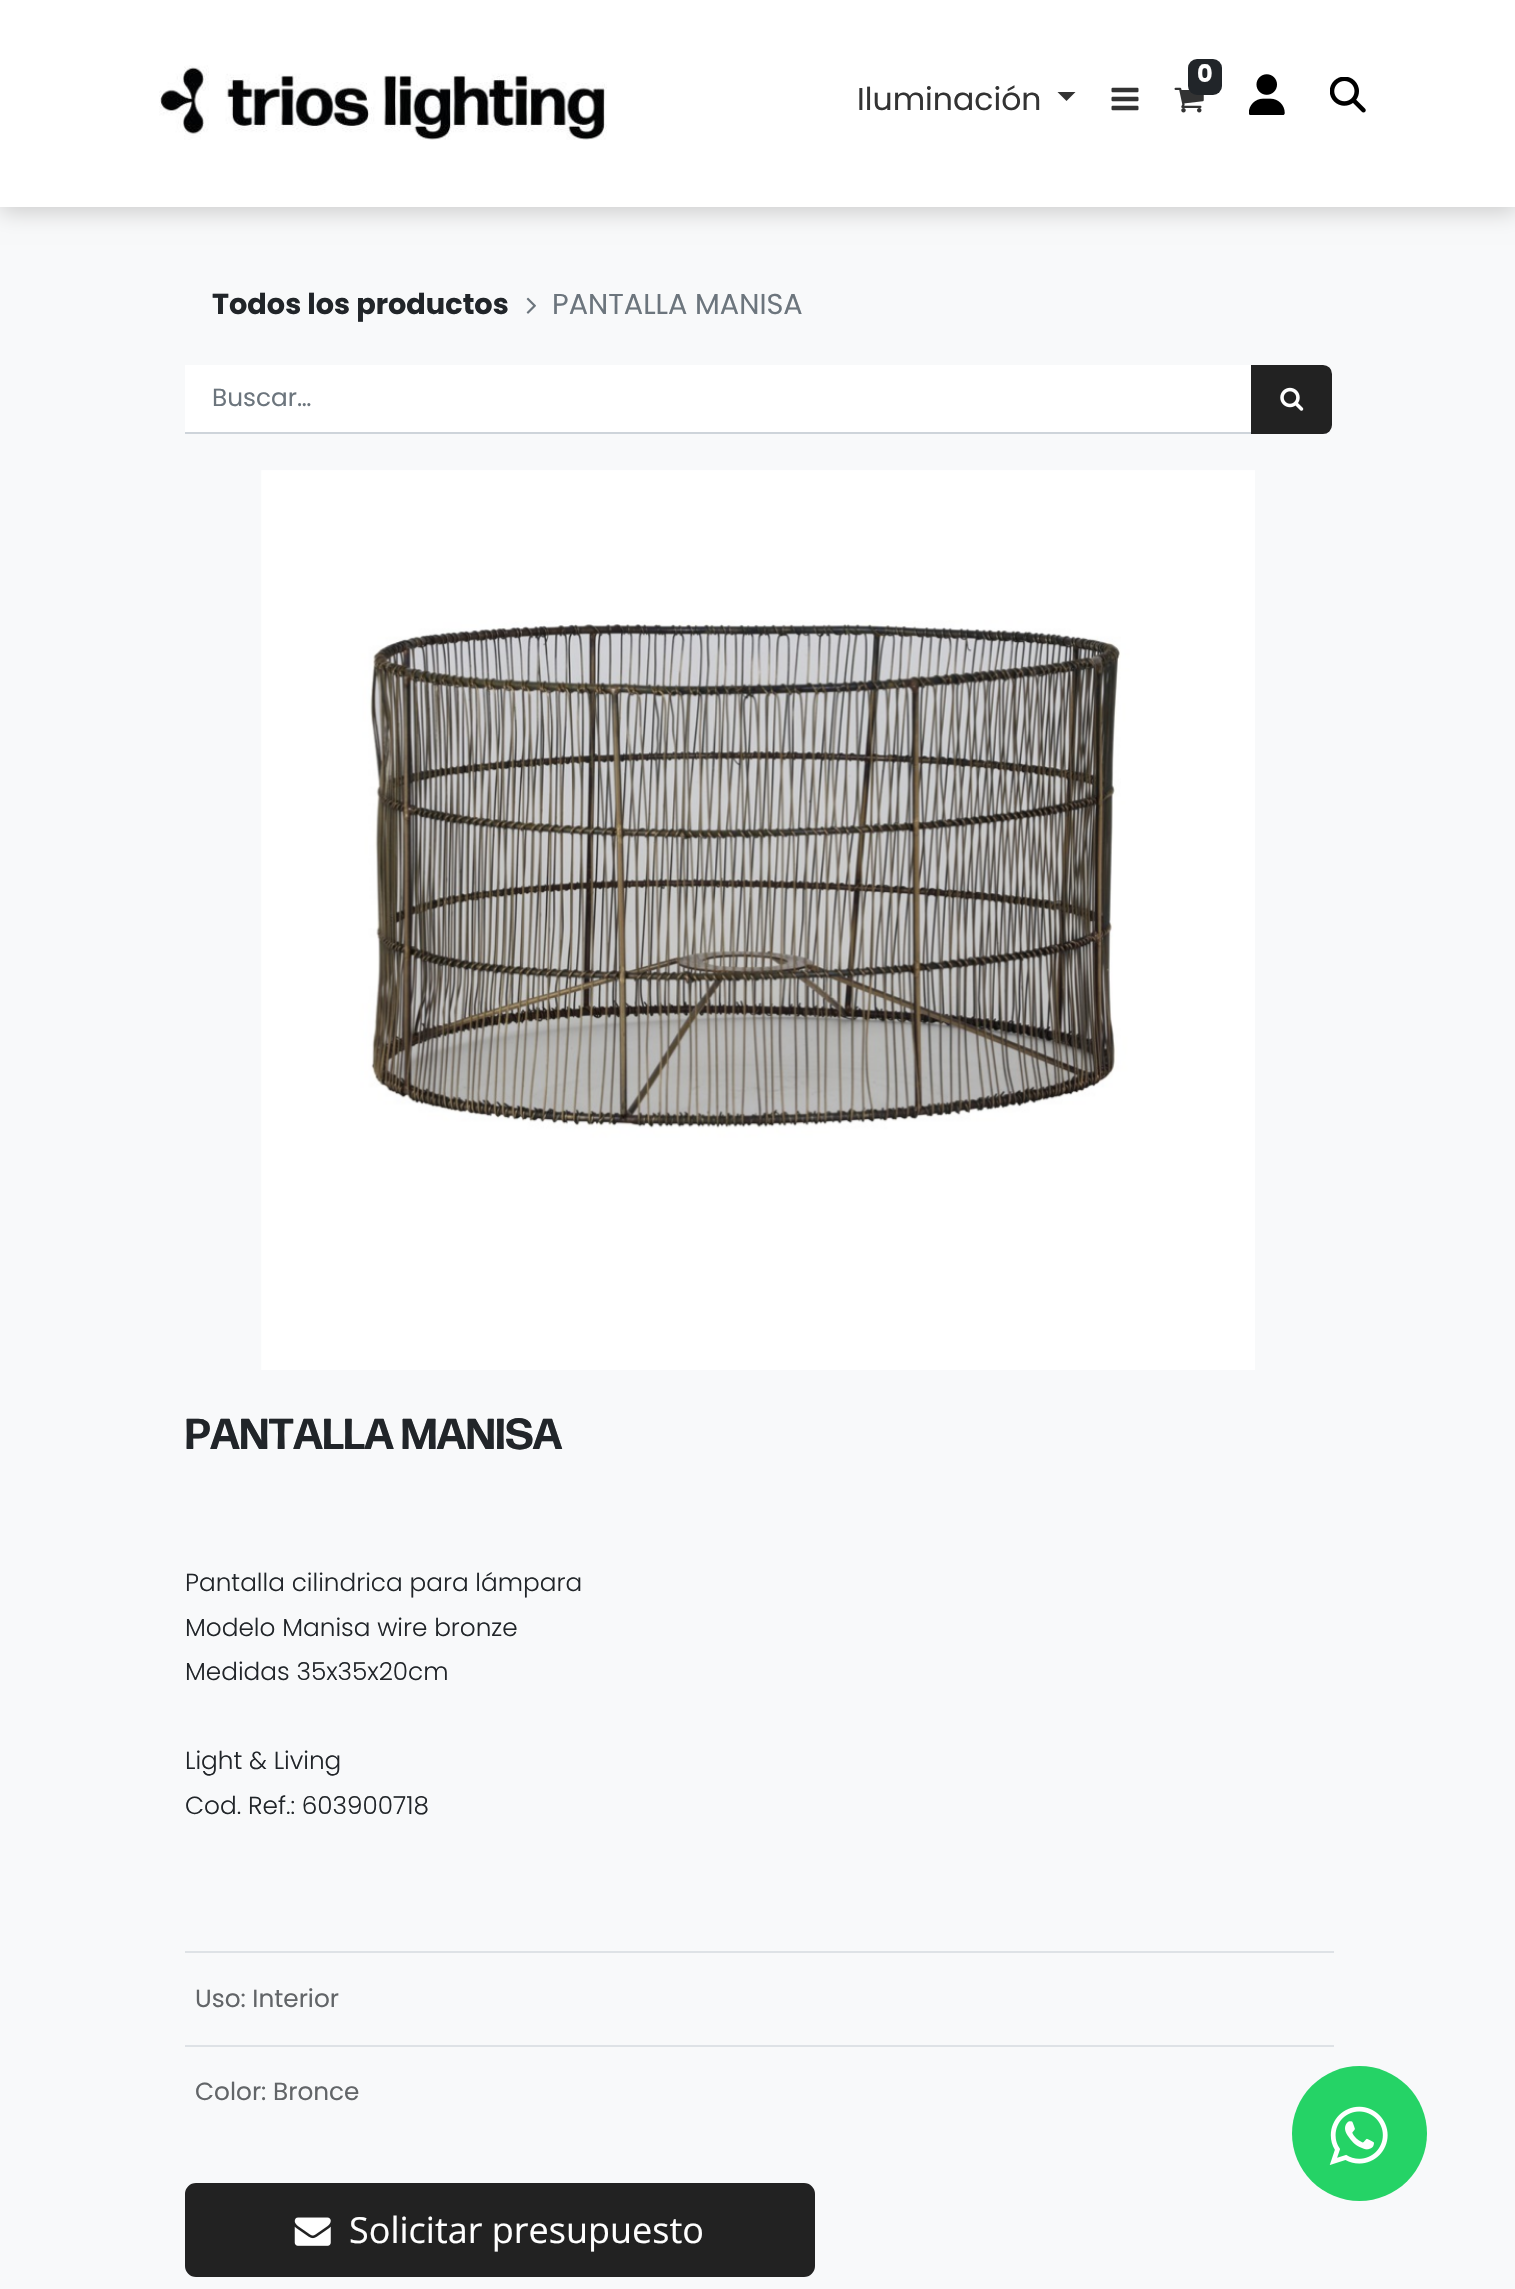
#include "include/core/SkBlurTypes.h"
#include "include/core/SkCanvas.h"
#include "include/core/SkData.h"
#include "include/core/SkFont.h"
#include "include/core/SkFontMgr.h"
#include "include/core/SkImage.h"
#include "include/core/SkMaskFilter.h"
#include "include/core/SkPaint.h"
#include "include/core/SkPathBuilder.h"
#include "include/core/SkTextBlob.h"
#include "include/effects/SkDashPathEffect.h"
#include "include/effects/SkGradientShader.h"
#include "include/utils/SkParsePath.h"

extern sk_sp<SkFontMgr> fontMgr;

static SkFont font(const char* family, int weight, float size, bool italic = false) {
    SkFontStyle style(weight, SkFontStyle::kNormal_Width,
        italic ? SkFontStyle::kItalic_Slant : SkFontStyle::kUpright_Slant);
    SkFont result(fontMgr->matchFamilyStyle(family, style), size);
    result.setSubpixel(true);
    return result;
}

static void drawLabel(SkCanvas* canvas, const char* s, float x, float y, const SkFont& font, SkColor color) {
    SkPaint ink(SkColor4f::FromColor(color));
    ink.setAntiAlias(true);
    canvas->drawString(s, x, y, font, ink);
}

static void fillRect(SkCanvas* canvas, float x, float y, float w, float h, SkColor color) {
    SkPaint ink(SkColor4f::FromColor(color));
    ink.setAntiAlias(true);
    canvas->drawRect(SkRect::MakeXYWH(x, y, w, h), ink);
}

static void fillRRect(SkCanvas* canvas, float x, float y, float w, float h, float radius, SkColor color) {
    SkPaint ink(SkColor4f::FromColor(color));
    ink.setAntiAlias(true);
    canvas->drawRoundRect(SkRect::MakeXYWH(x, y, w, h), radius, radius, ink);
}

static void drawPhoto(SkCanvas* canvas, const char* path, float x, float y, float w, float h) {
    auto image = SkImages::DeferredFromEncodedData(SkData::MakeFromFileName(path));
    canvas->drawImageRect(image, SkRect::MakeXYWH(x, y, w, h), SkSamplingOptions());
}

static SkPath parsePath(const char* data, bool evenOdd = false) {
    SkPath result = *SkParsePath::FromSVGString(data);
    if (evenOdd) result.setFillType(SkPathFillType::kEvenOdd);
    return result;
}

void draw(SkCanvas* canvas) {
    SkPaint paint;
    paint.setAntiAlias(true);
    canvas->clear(0xFFF8F9FA);
    paint.setColor(0xFFCCCCCC);
    paint.setMaskFilter(SkMaskFilter::MakeBlur(kNormal_SkBlurStyle, 11));
    canvas->drawRect(SkRect::MakeXYWH(0, 5, 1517, 207), paint);
    paint.setMaskFilter(nullptr);
    fillRect(canvas, 0, 0, 1515, 207, 0xFFFFFFFF);
    drawPhoto(canvas, "assets/img1.png", 159, 65, 448, 75);
    SkFont font1 = font("Poppins", 400, 31.5f);
    drawLabel(canvas, "Iluminación", 857, 110, font1, 0xFF333333);
    paint.setColor(0xFF333333);
    canvas->drawPath(parsePath("M1057.5 92H1075.5L1066.5 101Z"), paint);
    drawPhoto(canvas, "assets/img2.png", 1111, 87, 28, 24);
    drawPhoto(canvas, "assets/img3.png", 1174, 87, 30, 26);
    fillRRect(canvas, 1188, 59, 34, 36, 9, 0xFF212529);
    SkFont font2 = font("Poppins", 700, 24);
    drawLabel(canvas, "0", 1197, 82, font2, 0xFFFFFFFF);
    drawPhoto(canvas, "assets/img4.png", 1249, 74, 36, 41);
    drawPhoto(canvas, "assets/img5.png", 1330, 77, 36, 36);
    SkFont font3 = font("Poppins", 700, 28.75f);
    drawLabel(canvas, "Todos los productos", 212, 314, font3, 0xFF212529);
    drawPhoto(canvas, "assets/img6.png", 526, 297, 10, 17);
    SkFont font4 = font("Poppins", 400, 28.75f);
    drawLabel(canvas, "PANTALLA MANISA", 552, 314, font4, 0xFF6C757D);
    fillRect(canvas, 185, 365, 1066, 67, 0xFFFFFFFF);
    fillRect(canvas, 185, 432, 1068, 2, 0xFFCED4DA);
    SkFont font5 = font("Poppins", 400, 24.75f);
    drawLabel(canvas, "Buscar…", 212, 406, font5, 0xFF6C757D);
    paint.setColor(0xFF222222);
    canvas->drawPath(parsePath("M1252 366H1323C1327.5 366 1331 369.5 1331 374V425C1331 429.5 1327.5 433 1323 433H1252Z"), paint);
    paint.setStroke(true);
    paint.setStrokeWidth(2);
    canvas->drawPath(parsePath("M1252 366H1323C1327.5 366 1331 369.5 1331 374V425C1331 429.5 1327.5 433 1323 433H1252Z"), paint);
    drawPhoto(canvas, "assets/img7.png", 1280, 387, 24, 24);
    drawPhoto(canvas, "assets/img8.png", 261, 470, 994, 900);
    SkFont font6 = font("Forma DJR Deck", 700, 43.25f);
    drawLabel(canvas, "PANTALLA MANISA", 185, 1449, font6, 0xFF212529);
    SkFont font7 = font("Poppins", 300, 24.75f);
    drawLabel(canvas, "Pantalla cilindrica para lámpara", 185, 1591, font7, 0xFF212529);
    drawLabel(canvas, "Modelo Manisa wire bronze", 185, 1636, font7, 0xFF212529);
    drawLabel(canvas, "Medidas 35x35x20cm", 185, 1680, font7, 0xFF212529);
    drawLabel(canvas, "Light & Living", 185, 1769, font7, 0xFF212529);
    drawLabel(canvas, "Cod. Ref.: 603900718", 185, 1814, font7, 0xFF212529);
    fillRect(canvas, 185, 1951, 1149, 2, 0xFFDEE2E6);
    drawLabel(canvas, "Uso: Interior", 195, 2007, font5, 0xFF626568);
    fillRect(canvas, 185, 2045, 1149, 2, 0xFFDEE2E6);
    drawLabel(canvas, "Color: Bronce", 195, 2100, font5, 0xFF626568);
    paint.setStroke(false);
    canvas->drawRoundRect(SkRect::MakeXYWH(186, 2184, 628, 92), 10, 10, paint);
    paint.setStroke(true);
    canvas->drawRoundRect(SkRect::MakeXYWH(186, 2184, 628, 92), 10, 10, paint);
    drawPhoto(canvas, "assets/img9.png", 294, 2217, 37, 29);
    SkFont font8 = font("Open Sans", 400, 36);
    drawLabel(canvas, "Solicitar presupuesto", 349, 2243, font8, 0xFFFFFFFF);
    paint.setStroke(false);
    paint.setColor(0xFF25D366);
    canvas->drawCircle(1359.5f, 2133.5f, 67.5f, paint);
    drawPhoto(canvas, "assets/img10.png", 1329, 2106, 59, 59);
}
